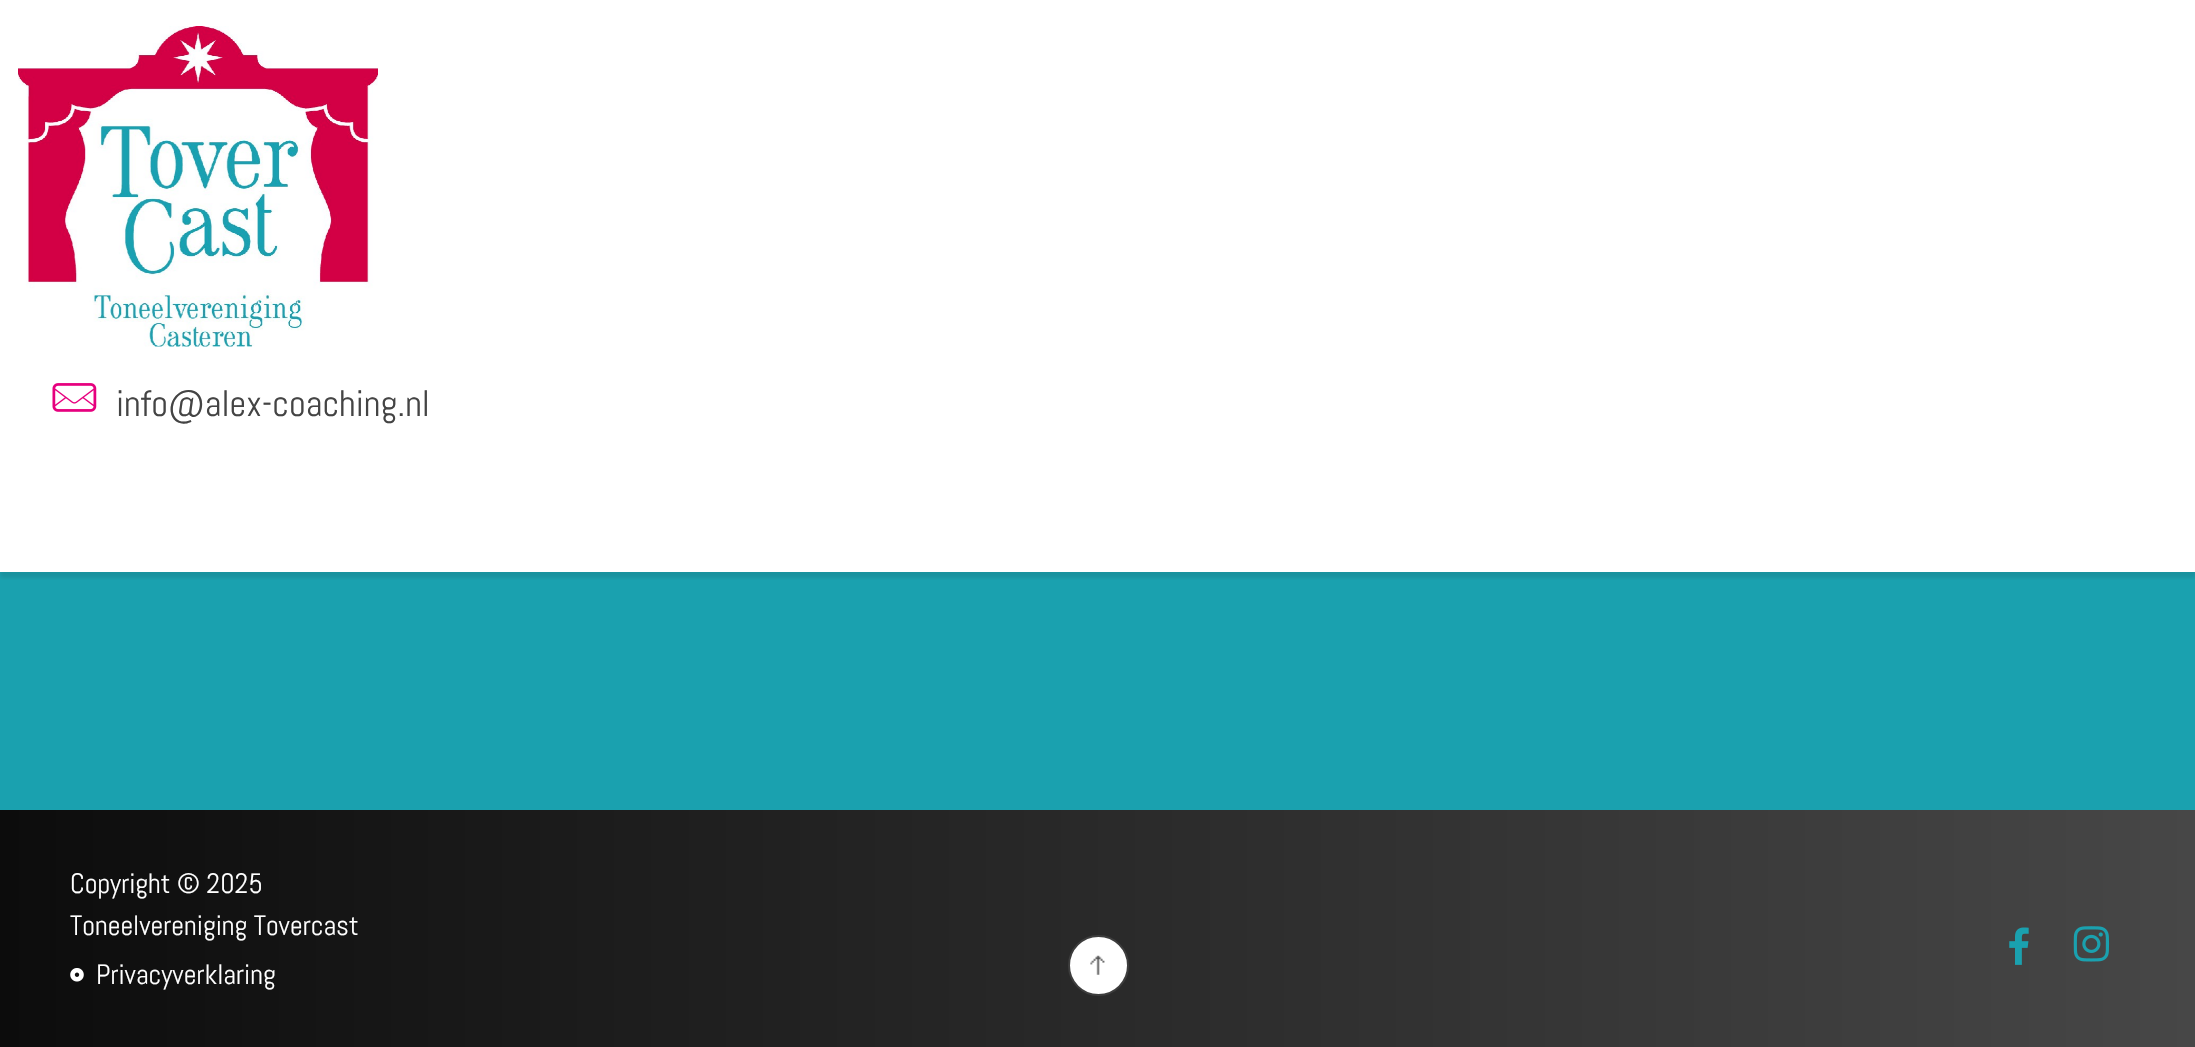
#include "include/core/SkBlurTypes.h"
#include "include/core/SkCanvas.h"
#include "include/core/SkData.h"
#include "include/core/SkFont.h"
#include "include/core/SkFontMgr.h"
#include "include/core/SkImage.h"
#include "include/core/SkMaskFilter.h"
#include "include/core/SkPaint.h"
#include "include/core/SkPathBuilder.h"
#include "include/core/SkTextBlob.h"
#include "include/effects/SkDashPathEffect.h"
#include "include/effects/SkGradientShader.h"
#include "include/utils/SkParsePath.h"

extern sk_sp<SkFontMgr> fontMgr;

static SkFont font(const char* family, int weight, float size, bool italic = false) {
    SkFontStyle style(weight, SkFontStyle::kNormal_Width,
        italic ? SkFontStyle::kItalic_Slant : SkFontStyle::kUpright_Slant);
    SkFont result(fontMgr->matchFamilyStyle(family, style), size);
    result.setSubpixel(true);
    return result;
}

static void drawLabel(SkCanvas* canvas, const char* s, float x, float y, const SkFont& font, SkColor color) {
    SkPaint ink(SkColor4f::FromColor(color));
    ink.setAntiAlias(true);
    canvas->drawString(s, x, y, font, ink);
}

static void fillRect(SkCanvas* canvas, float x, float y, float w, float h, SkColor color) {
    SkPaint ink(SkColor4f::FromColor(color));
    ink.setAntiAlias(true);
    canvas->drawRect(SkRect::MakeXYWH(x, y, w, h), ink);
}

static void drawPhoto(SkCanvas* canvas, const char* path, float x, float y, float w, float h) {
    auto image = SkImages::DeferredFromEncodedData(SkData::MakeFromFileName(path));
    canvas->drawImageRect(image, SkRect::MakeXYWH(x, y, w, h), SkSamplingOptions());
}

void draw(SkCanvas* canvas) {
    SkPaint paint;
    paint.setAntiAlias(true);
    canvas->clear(0xFFFFFFFF);
    fillRect(canvas, 0, 572, 2195, 238, 0xFF1AA1AF);
    canvas->save();
    canvas->clipRect(SkRect::MakeXYWH(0, 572, 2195, 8));
    paint.setColor(0x1A0A0A0A);
    paint.setMaskFilter(SkMaskFilter::MakeBlur(kNormal_SkBlurStyle, 2));
    canvas->drawRect(SkRect::MakeXYWH(0, -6, 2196, 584), paint);
    paint.setMaskFilter(nullptr);
    canvas->restore();
    drawPhoto(canvas, "assets/img1.png", 18, 26, 360, 321);
    drawPhoto(canvas, "assets/img2.png", 52, 383, 45, 29);
    SkFont font1 = font("Abel", 400, 36.75f);
    drawLabel(canvas, "info@alex-coaching.nl", 116, 416, font1, 0xFF444444);
    {
        const SkColor colors[] = {0xFF0C0C0C, 0xFF474747};
        const float stops[] = {0, 1};
        const SkPoint ends[] = {{0, 929}, {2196, 929}};
        paint.setShader(SkGradientShader::MakeLinear(ends, colors, stops, 2, SkTileMode::kClamp));
        paint.setAlpha(255);
    }
    canvas->drawRect(SkRect::MakeXYWH(0, 810, 2195, 237), paint);
    SkFont font2 = font("Abel", 400, 28);
    drawLabel(canvas, "Copyright © 2025", 70, 893, font2, 0xFFFFFFFF);
    drawLabel(canvas, "Toneelvereniging Tovercast", 70, 935, font2, 0xFFFFFFFF);
    drawPhoto(canvas, "assets/img3.png", 70, 968, 14, 14);
    drawLabel(canvas, "Privacyverklaring", 96, 984, font2, 0xFFFFFFFF);
    drawPhoto(canvas, "assets/img4.png", 2009, 927, 20, 38);
    drawPhoto(canvas, "assets/img5.png", 2073, 926, 37, 36);
    paint.setShader(nullptr);
    paint.setColor(0xFFFFFFFF);
    canvas->drawCircle(1098.5f, 965.5f, 29.5f, paint);
    paint.setStroke(true);
    paint.setStrokeWidth(2);
    paint.setColor(0xFF3D3D3D);
    canvas->drawCircle(1098.5f, 965.5f, 29.5f, paint);
    drawPhoto(canvas, "assets/img6.png", 1090, 955, 15, 20);
}
